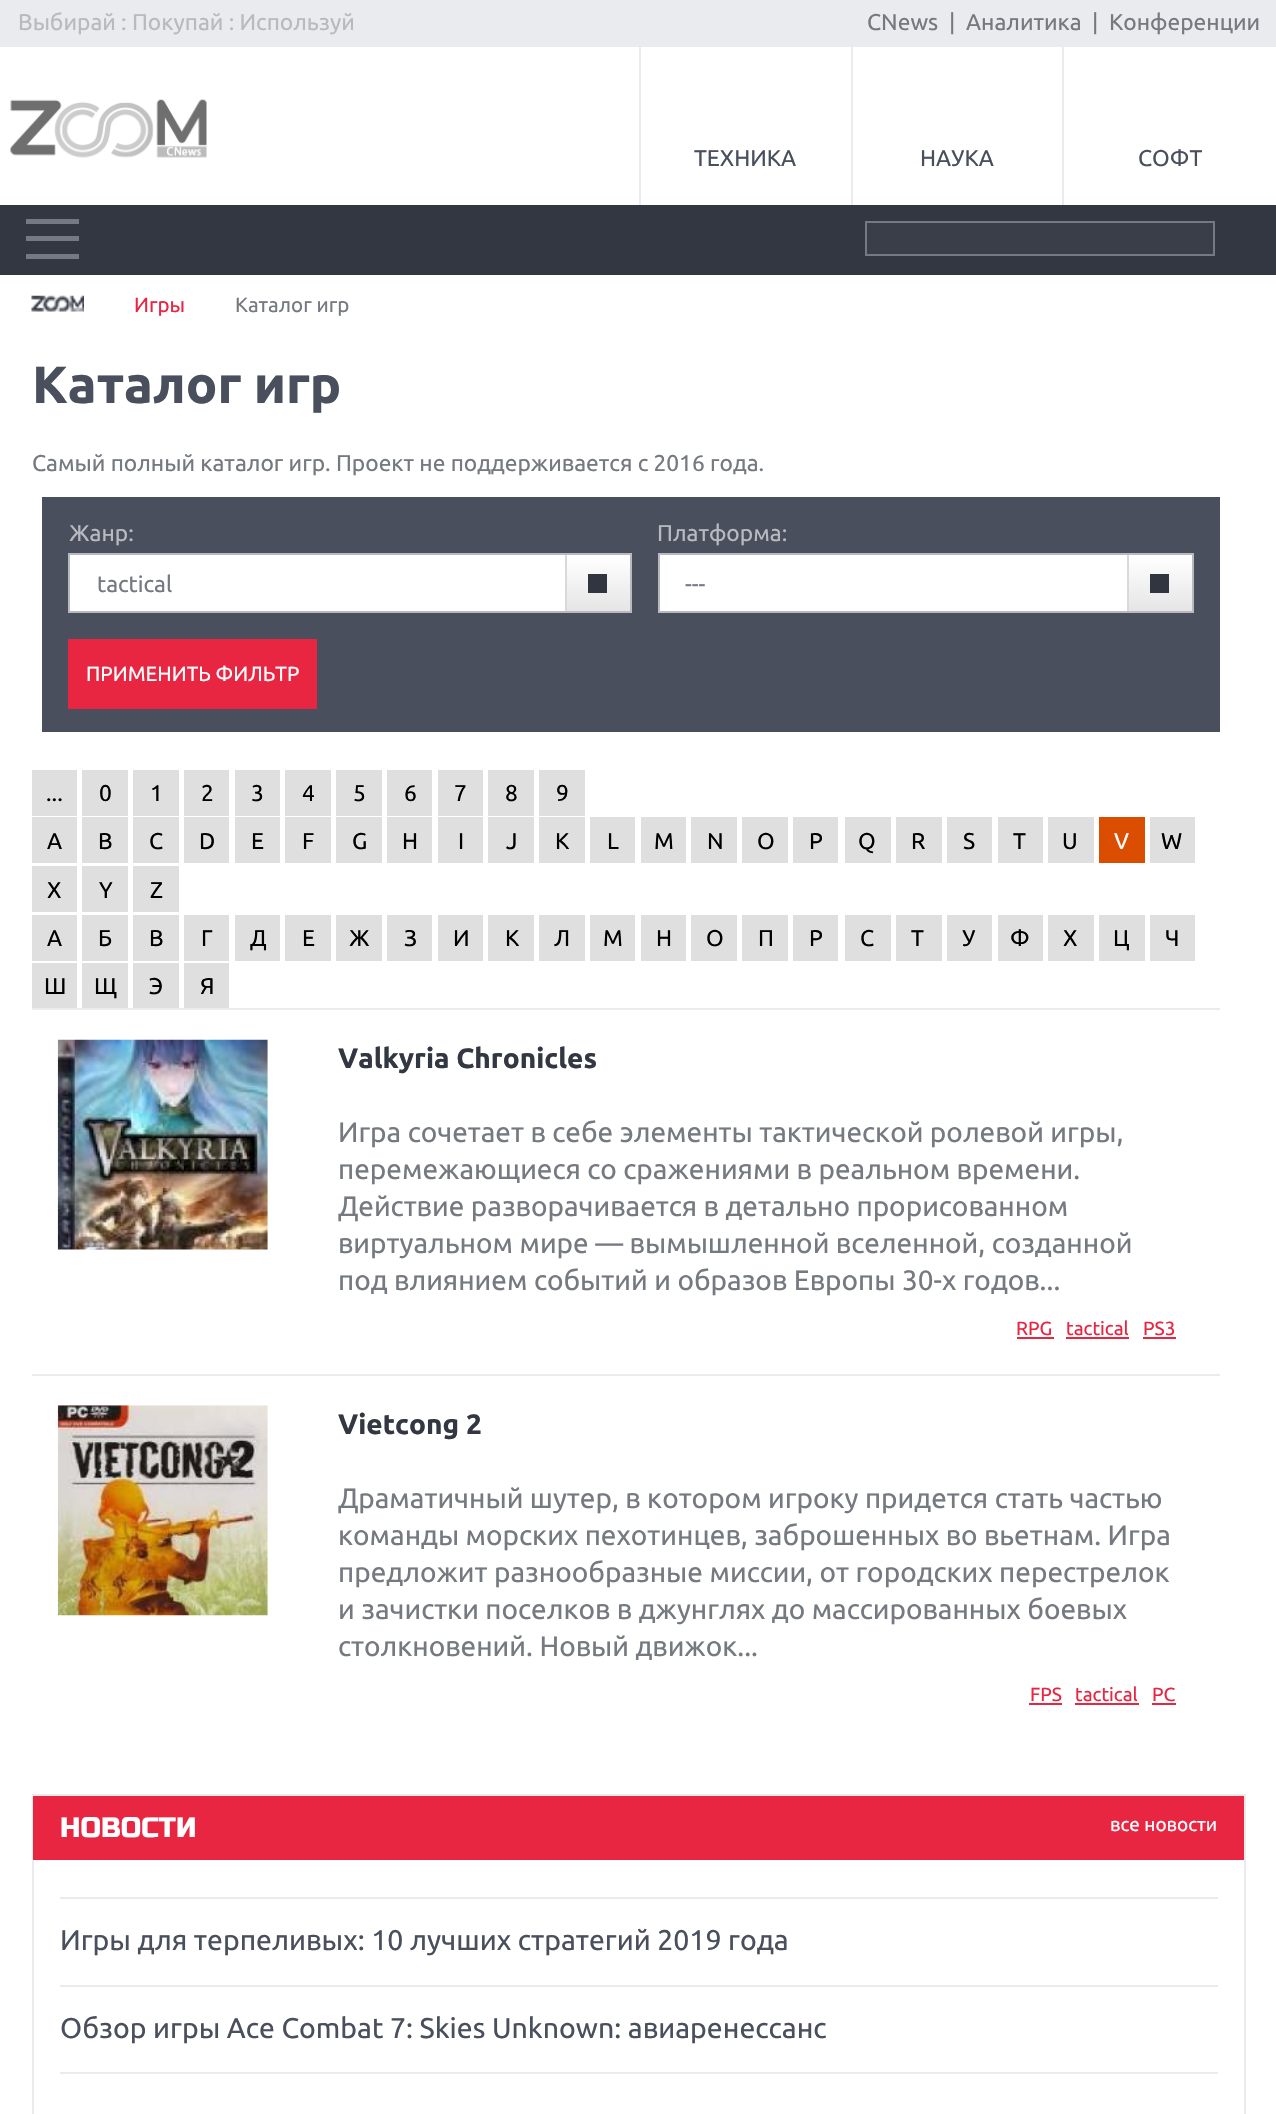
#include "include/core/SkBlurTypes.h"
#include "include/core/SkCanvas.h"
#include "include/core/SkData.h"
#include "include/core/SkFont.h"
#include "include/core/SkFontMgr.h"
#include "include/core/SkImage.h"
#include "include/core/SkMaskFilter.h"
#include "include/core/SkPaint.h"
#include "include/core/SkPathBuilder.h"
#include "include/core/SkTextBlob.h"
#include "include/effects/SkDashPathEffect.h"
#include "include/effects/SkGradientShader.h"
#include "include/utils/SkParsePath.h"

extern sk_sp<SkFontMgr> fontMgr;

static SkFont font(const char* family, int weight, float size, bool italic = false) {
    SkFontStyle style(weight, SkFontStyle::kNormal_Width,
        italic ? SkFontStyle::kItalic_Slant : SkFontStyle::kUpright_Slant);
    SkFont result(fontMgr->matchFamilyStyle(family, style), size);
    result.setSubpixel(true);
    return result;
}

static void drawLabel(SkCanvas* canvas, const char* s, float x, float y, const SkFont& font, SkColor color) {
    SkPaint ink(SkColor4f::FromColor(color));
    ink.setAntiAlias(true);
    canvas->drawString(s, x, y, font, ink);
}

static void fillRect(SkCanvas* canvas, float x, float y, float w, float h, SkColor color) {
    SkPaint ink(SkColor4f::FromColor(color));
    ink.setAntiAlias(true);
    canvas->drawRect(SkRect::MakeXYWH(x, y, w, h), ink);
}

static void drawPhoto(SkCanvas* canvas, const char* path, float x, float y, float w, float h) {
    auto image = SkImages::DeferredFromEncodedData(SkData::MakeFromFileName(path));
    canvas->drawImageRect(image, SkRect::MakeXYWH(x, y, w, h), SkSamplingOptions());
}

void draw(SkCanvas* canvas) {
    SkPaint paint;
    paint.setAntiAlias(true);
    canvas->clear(0xFFFFFFFF);
    fillRect(canvas, 0, 0, 1276, 47, 0xFFE9EBEE);
    SkFont font1 = font("Ubuntu", 400, 22.75f);
    drawLabel(canvas, "Выбирай : Покупай : Используй", 18, 30, font1, 0xFFB8BABF);
    drawLabel(canvas, "CNews", 867, 30, font1, 0xFF757980);
    drawLabel(canvas, "|", 949, 30, font1, 0xFF757980);
    drawLabel(canvas, "Аналитика", 966, 30, font1, 0xFF757980);
    drawLabel(canvas, "|", 1092, 30, font1, 0xFF757980);
    drawLabel(canvas, "Конференции", 1109, 30, font1, 0xFF757980);
    drawPhoto(canvas, "assets/img1.png", 10, 99, 197, 59);
    fillRect(canvas, 851, 47, 2, 158, 0xFFE9EBEE);
    fillRect(canvas, 639, 47, 2, 158, 0xFFE9EBEE);
    drawLabel(canvas, "ТЕХНИКА", 694, 166, font1, 0xFF494F5C);
    fillRect(canvas, 1062, 47, 2, 158, 0xFFE9EBEE);
    drawLabel(canvas, "НАУКА", 920, 166, font1, 0xFF494F5C);
    drawLabel(canvas, "СОФТ", 1138, 166, font1, 0xFF494F5C);
    fillRect(canvas, 0, 205, 1276, 70, 0xFF323742);
    fillRect(canvas, 26, 219, 53, 5, 0xFF757981);
    fillRect(canvas, 26, 236, 53, 5, 0xFF757981);
    fillRect(canvas, 26, 254, 53, 5, 0xFF757981);
    paint.setColor(0xFF393E49);
    canvas->drawRect(SkRect::MakeXYWH(866, 222, 348, 33), paint);
    paint.setStroke(true);
    paint.setStrokeWidth(2);
    paint.setColor(0xFF757981);
    canvas->drawRect(SkRect::MakeXYWH(866, 222, 348, 33), paint);
    drawPhoto(canvas, "assets/img2.png", 31, 295, 53, 17);
    SkFont font2 = font("Ubuntu", 400, 20.5f);
    drawLabel(canvas, "Игры", 134, 312, font2, 0xFFE82642);
    drawLabel(canvas, "Каталог игр", 235, 312, font2, 0xFF757980);
    SkFont font3 = font("Ubuntu", 700, 52.25f);
    drawLabel(canvas, "Каталог игр", 32, 403, font3, 0xFF494F5C);
    drawLabel(canvas, "Самый полный каталог игр. Проект не поддерживается с 2016 года.", 32, 471, font1, 0xFF757980);
    fillRect(canvas, 42, 497, 1178, 235, 0xFF494F5C);
    drawLabel(canvas, "Жанр:", 69, 541, font1, 0xFFB8BABF);
    fillRect(canvas, 70, 555, 495, 56, 0xFFFFFFFF);
    paint.setColor(0xFFB8BABF);
    canvas->drawRect(SkRect::MakeXYWH(69, 554, 562, 58), paint);
    drawLabel(canvas, "tactical", 97, 592, font1, 0xFF757980);
    paint.setStroke(false);
    {
        const SkColor colors[] = {0xFFFFFFFF, 0xFFE5E5E5};
        const float stops[] = {0, 1};
        const SkPoint ends[] = {{599, 557}, {599, 611}};
        paint.setShader(SkGradientShader::MakeLinear(ends, colors, stops, 2, SkTileMode::kClamp));
        paint.setAlpha(255);
    }
    canvas->drawRect(SkRect::MakeXYWH(567, 557, 63, 54), paint);
    fillRect(canvas, 565, 555, 65, 2, 0xFFFFFFFF);
    fillRect(canvas, 565, 555, 2, 56, 0xFFD8D9D9);
    fillRect(canvas, 588, 574, 19, 19, 0xFF303540);
    drawLabel(canvas, "Платформа:", 657, 541, font1, 0xFFB8BABF);
    fillRect(canvas, 660, 555, 467, 56, 0xFFFFFFFF);
    paint.setStroke(true);
    paint.setShader(nullptr);
    paint.setColor(0xFFB8BABF);
    canvas->drawRect(SkRect::MakeXYWH(659, 554, 534, 58), paint);
    drawLabel(canvas, "---", 685, 592, font1, 0xFF757980);
    paint.setStroke(false);
    {
        const SkColor colors[] = {0xFFFFFFFF, 0xFFE5E5E5};
        const float stops[] = {0, 1};
        const SkPoint ends[] = {{1160, 557}, {1160, 611}};
        paint.setShader(SkGradientShader::MakeLinear(ends, colors, stops, 2, SkTileMode::kClamp));
        paint.setAlpha(255);
    }
    canvas->drawRect(SkRect::MakeXYWH(1129, 557, 63, 54), paint);
    fillRect(canvas, 1127, 555, 65, 2, 0xFFFFFFFF);
    fillRect(canvas, 1127, 555, 2, 56, 0xFFD8D9D9);
    fillRect(canvas, 1150, 574, 19, 19, 0xFF303540);
    fillRect(canvas, 68, 639, 249, 70, 0xFFE82642);
    drawLabel(canvas, "ПРИМЕНИТЬ ФИЛЬТР", 86, 681, font2, 0xFFFFFFFF);
    fillRect(canvas, 32, 770, 45, 46, 0xFFDFDFDF);
    drawLabel(canvas, "...", 46, 801, font1, 0xFF000000);
    fillRect(canvas, 82, 770, 46, 46, 0xFFDFDFDF);
    drawLabel(canvas, "0", 99, 801, font1, 0xFF000000);
    fillRect(canvas, 133, 770, 46, 46, 0xFFDFDFDF);
    drawLabel(canvas, "1", 150, 801, font1, 0xFF000000);
    fillRect(canvas, 184, 770, 45, 46, 0xFFDFDFDF);
    drawLabel(canvas, "2", 201, 801, font1, 0xFF000000);
    fillRect(canvas, 235, 770, 45, 46, 0xFFDFDFDF);
    drawLabel(canvas, "3", 251, 801, font1, 0xFF000000);
    fillRect(canvas, 285, 770, 46, 46, 0xFFDFDFDF);
    drawLabel(canvas, "4", 302, 801, font1, 0xFF000000);
    fillRect(canvas, 336, 770, 46, 46, 0xFFDFDFDF);
    drawLabel(canvas, "5", 353, 801, font1, 0xFF000000);
    fillRect(canvas, 387, 770, 45, 46, 0xFFDFDFDF);
    drawLabel(canvas, "6", 404, 801, font1, 0xFF000000);
    fillRect(canvas, 438, 770, 45, 46, 0xFFDFDFDF);
    drawLabel(canvas, "7", 454, 801, font1, 0xFF000000);
    fillRect(canvas, 488, 770, 46, 46, 0xFFDFDFDF);
    drawLabel(canvas, "8", 505, 801, font1, 0xFF000000);
    fillRect(canvas, 539, 770, 46, 46, 0xFFDFDFDF);
    drawLabel(canvas, "9", 556, 801, font1, 0xFF000000);
    fillRect(canvas, 32, 817, 45, 46, 0xFFDFDFDF);
    drawLabel(canvas, "A", 47, 849, font1, 0xFF000000);
    fillRect(canvas, 82, 817, 46, 46, 0xFFDFDFDF);
    drawLabel(canvas, "B", 98, 849, font1, 0xFF000000);
    fillRect(canvas, 133, 817, 46, 46, 0xFFDFDFDF);
    drawLabel(canvas, "C", 149, 849, font1, 0xFF000000);
    fillRect(canvas, 184, 817, 45, 46, 0xFFDFDFDF);
    drawLabel(canvas, "D", 199, 849, font1, 0xFF000000);
    fillRect(canvas, 235, 817, 45, 46, 0xFFDFDFDF);
    drawLabel(canvas, "E", 251, 849, font1, 0xFF000000);
    fillRect(canvas, 285, 817, 46, 46, 0xFFDFDFDF);
    drawLabel(canvas, "F", 302, 849, font1, 0xFF000000);
    fillRect(canvas, 336, 817, 46, 46, 0xFFDFDFDF);
    drawLabel(canvas, "G", 352, 849, font1, 0xFF000000);
    fillRect(canvas, 387, 817, 45, 46, 0xFFDFDFDF);
    drawLabel(canvas, "H", 402, 849, font1, 0xFF000000);
    fillRect(canvas, 438, 817, 45, 46, 0xFFDFDFDF);
    drawLabel(canvas, "I", 458, 849, font1, 0xFF000000);
    fillRect(canvas, 488, 817, 46, 46, 0xFFDFDFDF);
    drawLabel(canvas, "J", 506, 849, font1, 0xFF000000);
    fillRect(canvas, 539, 817, 46, 46, 0xFFDFDFDF);
    drawLabel(canvas, "K", 555, 849, font1, 0xFF000000);
    fillRect(canvas, 590, 817, 45, 46, 0xFFDFDFDF);
    drawLabel(canvas, "L", 607, 849, font1, 0xFF000000);
    fillRect(canvas, 641, 817, 45, 46, 0xFFDFDFDF);
    drawLabel(canvas, "M", 654, 849, font1, 0xFF000000);
    fillRect(canvas, 691, 817, 46, 46, 0xFFDFDFDF);
    drawLabel(canvas, "N", 707, 849, font1, 0xFF000000);
    fillRect(canvas, 742, 817, 46, 46, 0xFFDFDFDF);
    drawLabel(canvas, "O", 757, 849, font1, 0xFF000000);
    fillRect(canvas, 793, 817, 45, 46, 0xFFDFDFDF);
    drawLabel(canvas, "P", 809, 849, font1, 0xFF000000);
    fillRect(canvas, 845, 817, 46, 46, 0xFFDFDFDF);
    drawLabel(canvas, "Q", 858, 849, font1, 0xFF000000);
    fillRect(canvas, 896, 817, 46, 46, 0xFFDFDFDF);
    drawLabel(canvas, "R", 911, 849, font1, 0xFF000000);
    fillRect(canvas, 947, 817, 45, 46, 0xFFDFDFDF);
    drawLabel(canvas, "S", 963, 849, font1, 0xFF000000);
    fillRect(canvas, 998, 817, 45, 46, 0xFFDFDFDF);
    drawLabel(canvas, "T", 1013, 849, font1, 0xFF000000);
    fillRect(canvas, 1048, 817, 46, 46, 0xFFDFDFDF);
    drawLabel(canvas, "U", 1062, 849, font1, 0xFF000000);
    fillRect(canvas, 1099, 817, 46, 46, 0xFFDB4D00);
    drawLabel(canvas, "V", 1114, 849, font1, 0xFFFFFFFF);
    fillRect(canvas, 1150, 817, 45, 46, 0xFFDFDFDF);
    drawLabel(canvas, "W", 1161, 849, font1, 0xFF000000);
    fillRect(canvas, 32, 866, 45, 46, 0xFFDFDFDF);
    drawLabel(canvas, "X", 47, 898, font1, 0xFF000000);
    fillRect(canvas, 82, 866, 46, 46, 0xFFDFDFDF);
    drawLabel(canvas, "Y", 99, 898, font1, 0xFF000000);
    fillRect(canvas, 133, 866, 46, 46, 0xFFDFDFDF);
    drawLabel(canvas, "Z", 150, 898, font1, 0xFF000000);
    fillRect(canvas, 32, 915, 45, 46, 0xFFDFDFDF);
    drawLabel(canvas, "А", 47, 946, font1, 0xFF000000);
    fillRect(canvas, 82, 915, 46, 46, 0xFFDFDFDF);
    drawLabel(canvas, "Б", 98, 946, font1, 0xFF000000);
    fillRect(canvas, 133, 915, 46, 46, 0xFFDFDFDF);
    drawLabel(canvas, "В", 149, 946, font1, 0xFF000000);
    fillRect(canvas, 184, 915, 45, 46, 0xFFDFDFDF);
    drawLabel(canvas, "Г", 201, 946, font1, 0xFF000000);
    fillRect(canvas, 235, 915, 45, 46, 0xFFDFDFDF);
    drawLabel(canvas, "Д", 250, 946, font1, 0xFF000000);
    fillRect(canvas, 285, 915, 46, 46, 0xFFDFDFDF);
    drawLabel(canvas, "Е", 302, 946, font1, 0xFF000000);
    fillRect(canvas, 336, 915, 46, 46, 0xFFDFDFDF);
    drawLabel(canvas, "Ж", 349, 946, font1, 0xFF000000);
    fillRect(canvas, 387, 915, 45, 46, 0xFFDFDFDF);
    drawLabel(canvas, "З", 404, 946, font1, 0xFF000000);
    fillRect(canvas, 438, 915, 45, 46, 0xFFDFDFDF);
    drawLabel(canvas, "И", 453, 946, font1, 0xFF000000);
    fillRect(canvas, 488, 915, 46, 46, 0xFFDFDFDF);
    drawLabel(canvas, "К", 505, 946, font1, 0xFF000000);
    fillRect(canvas, 539, 915, 46, 46, 0xFFDFDFDF);
    drawLabel(canvas, "Л", 554, 946, font1, 0xFF000000);
    fillRect(canvas, 590, 915, 45, 46, 0xFFDFDFDF);
    drawLabel(canvas, "М", 603, 946, font1, 0xFF000000);
    fillRect(canvas, 641, 915, 45, 46, 0xFFDFDFDF);
    drawLabel(canvas, "Н", 656, 946, font1, 0xFF000000);
    fillRect(canvas, 691, 915, 46, 46, 0xFFDFDFDF);
    drawLabel(canvas, "О", 706, 946, font1, 0xFF000000);
    fillRect(canvas, 742, 915, 46, 46, 0xFFDFDFDF);
    drawLabel(canvas, "П", 758, 946, font1, 0xFF000000);
    fillRect(canvas, 793, 915, 45, 46, 0xFFDFDFDF);
    drawLabel(canvas, "Р", 809, 946, font1, 0xFF000000);
    fillRect(canvas, 845, 915, 46, 46, 0xFFDFDFDF);
    drawLabel(canvas, "С", 860, 946, font1, 0xFF000000);
    fillRect(canvas, 896, 915, 46, 46, 0xFFDFDFDF);
    drawLabel(canvas, "Т", 911, 946, font1, 0xFF000000);
    fillRect(canvas, 947, 915, 45, 46, 0xFFDFDFDF);
    drawLabel(canvas, "У", 962, 946, font1, 0xFF000000);
    fillRect(canvas, 998, 915, 45, 46, 0xFFDFDFDF);
    drawLabel(canvas, "Ф", 1010, 946, font1, 0xFF000000);
    fillRect(canvas, 1048, 915, 46, 46, 0xFFDFDFDF);
    drawLabel(canvas, "Х", 1063, 946, font1, 0xFF000000);
    fillRect(canvas, 1099, 915, 46, 46, 0xFFDFDFDF);
    drawLabel(canvas, "Ц", 1113, 946, font1, 0xFF000000);
    fillRect(canvas, 1150, 915, 45, 46, 0xFFDFDFDF);
    drawLabel(canvas, "Ч", 1165, 946, font1, 0xFF000000);
    fillRect(canvas, 32, 963, 45, 45, 0xFFDFDFDF);
    drawLabel(canvas, "Ш", 44, 994, font1, 0xFF000000);
    fillRect(canvas, 82, 963, 46, 45, 0xFFDFDFDF);
    drawLabel(canvas, "Щ", 94, 994, font1, 0xFF000000);
    fillRect(canvas, 133, 963, 46, 45, 0xFFDFDFDF);
    drawLabel(canvas, "Э", 149, 994, font1, 0xFF000000);
    fillRect(canvas, 184, 963, 45, 45, 0xFFDFDFDF);
    drawLabel(canvas, "Я", 200, 994, font1, 0xFF000000);
    fillRect(canvas, 32, 1008, 1188, 2, 0xFFE9EBEE);
    drawPhoto(canvas, "assets/img3.png", 57, 1039, 211, 211);
    SkFont font4 = font("Ubuntu", 700, 28);
    drawLabel(canvas, "Valkyria Chronicles", 338, 1068, font4, 0xFF323742);
    SkFont font5 = font("Ubuntu", 400, 28);
    drawLabel(canvas, "Игра сочетает в себе элементы тактической ролевой игры,", 338, 1142, font5, 0xFF757980);
    drawLabel(canvas, "перемежающиеся со сражениями в реальном времени.", 338, 1179, font5, 0xFF757980);
    drawLabel(canvas, "Действие разворачивается в детально прорисованном", 338, 1216, font5, 0xFF757980);
    drawLabel(canvas, "виртуальном мире — вымышленной вселенной, созданной", 338, 1253, font5, 0xFF757980);
    drawLabel(canvas, "под влиянием событий и образов Европы 30-х годов...", 338, 1290, font5, 0xFF757980);
    SkFont font6 = font("Ubuntu", 400, 19);
    drawLabel(canvas, "RPG", 1016, 1335, font6, 0xFFE82642);
    fillRect(canvas, 1017, 1337, 37, 2, 0xFFE82642);
    drawLabel(canvas, "tactical", 1066, 1335, font6, 0xFFE82642);
    fillRect(canvas, 1066, 1337, 63, 2, 0xFFE82642);
    drawLabel(canvas, "PS3", 1143, 1335, font6, 0xFFE82642);
    fillRect(canvas, 1143, 1337, 33, 2, 0xFFE82642);
    fillRect(canvas, 32, 1374, 1188, 2, 0xFFE9EBEE);
    drawPhoto(canvas, "assets/img4.png", 57, 1405, 211, 211);
    drawLabel(canvas, "Vietcong 2", 338, 1434, font4, 0xFF323742);
    drawLabel(canvas, "Драматичный шутер, в котором игроку придется стать частью", 338, 1508, font5, 0xFF757980);
    drawLabel(canvas, "команды морских пехотинцев, заброшенных во вьетнам. Игра", 338, 1545, font5, 0xFF757980);
    drawLabel(canvas, "предложит разнообразные миссии, от городских перестрелок", 338, 1582, font5, 0xFF757980);
    drawLabel(canvas, "и зачистки поселков в джунглях до массированных боевых", 338, 1619, font5, 0xFF757980);
    drawLabel(canvas, "столкновений. Новый движок...", 338, 1656, font5, 0xFF757980);
    drawLabel(canvas, "FPS", 1030, 1701, font6, 0xFFE82642);
    fillRect(canvas, 1029, 1703, 33, 2, 0xFFE82642);
    drawLabel(canvas, "tactical", 1075, 1701, font6, 0xFFE82642);
    fillRect(canvas, 1075, 1703, 64, 2, 0xFFE82642);
    drawLabel(canvas, "PC", 1152, 1701, font6, 0xFFE82642);
    fillRect(canvas, 1152, 1703, 24, 2, 0xFFE82642);
    paint.setStroke(true);
    paint.setShader(nullptr);
    paint.setColor(0xFFE9EBEE);
    canvas->drawRect(SkRect::MakeXYWH(33, 1795, 1212, 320), paint);
    fillRect(canvas, 33, 1796, 1211, 64, 0xFFE82642);
    SkFont font7 = font("Russo One", 400, 28);
    drawLabel(canvas, "НОВОСТИ", 60, 1837, font7, 0xFFFFFFFF);
    drawLabel(canvas, "все новости", 1110, 1831, font6, 0xFFFFFFFF);
    fillRect(canvas, 60, 1897, 1158, 2, 0xFFE9EBEE);
    fillRect(canvas, 60, 1985, 1158, 2, 0xFFE9EBEE);
    SkFont font8 = font("Ubuntu", 400, 28.45f);
    drawLabel(canvas, "Игры для терпеливых: 10 лучших стратегий 2019 года", 60, 1950, font8, 0xFF494F5C);
    fillRect(canvas, 60, 2072, 1158, 2, 0xFFE9EBEE);
    drawLabel(canvas, "Обзор игры Ace Combat 7: Skies Unknown: авиаренессанс", 60, 2038, font8, 0xFF494F5C);
}
